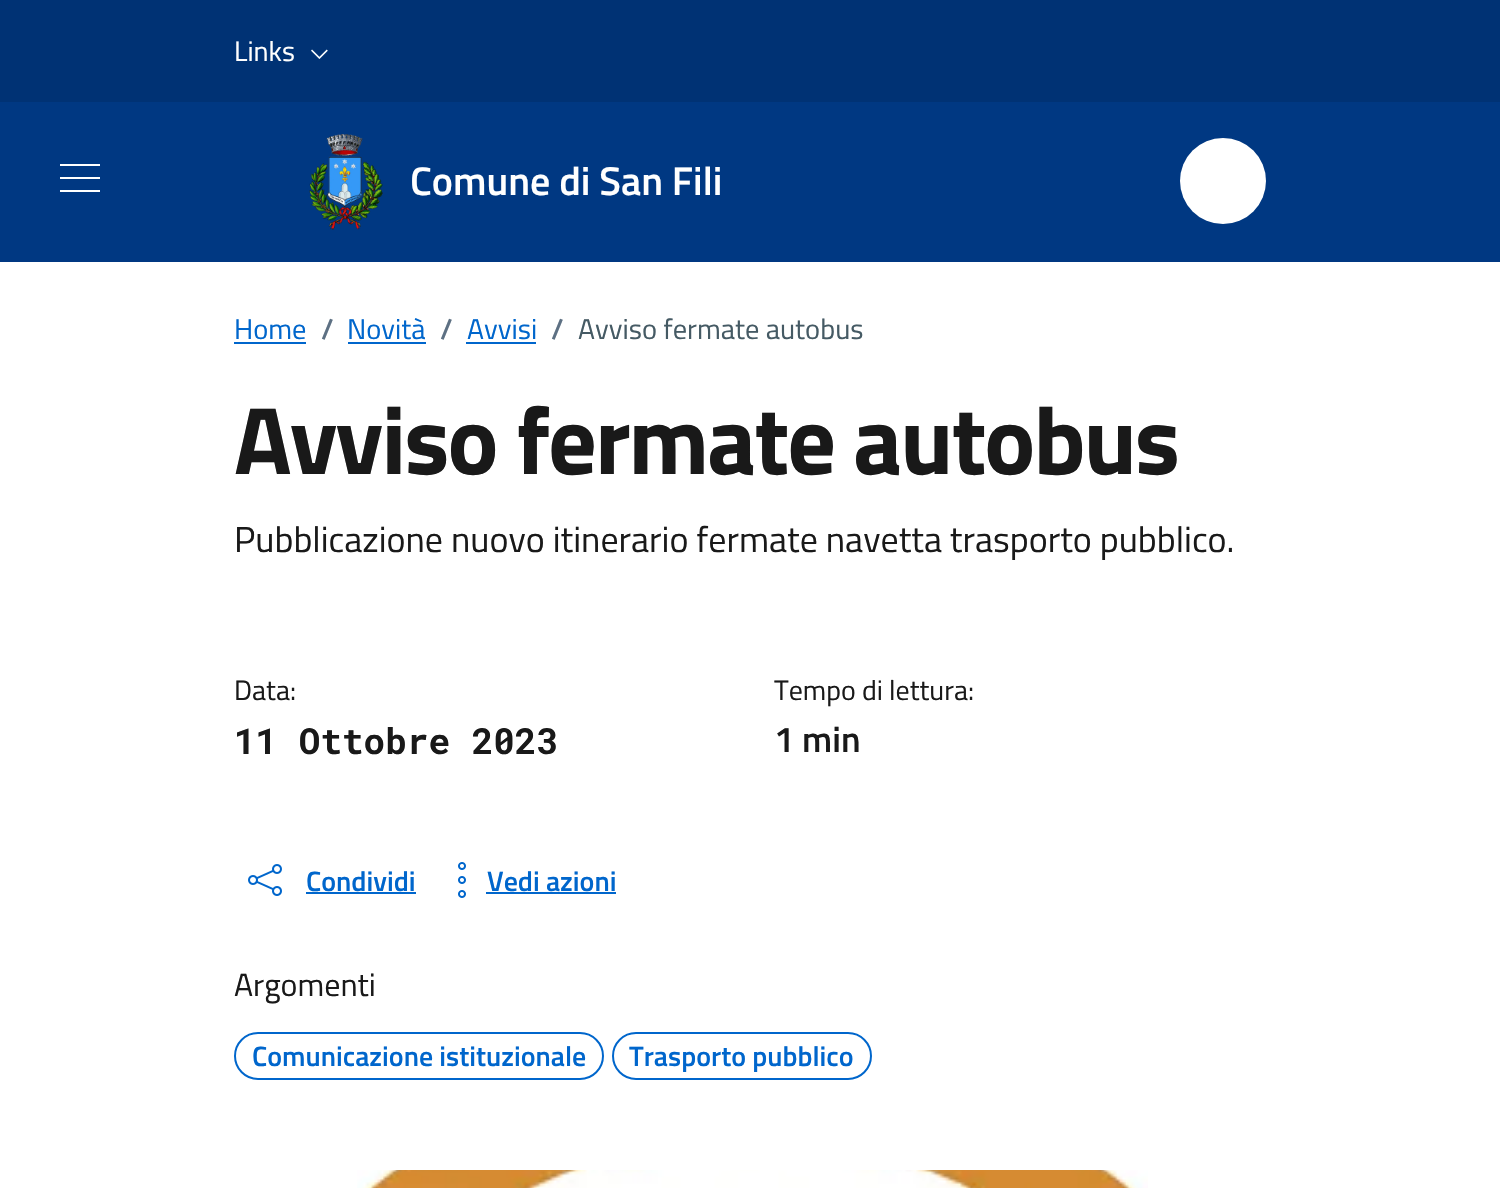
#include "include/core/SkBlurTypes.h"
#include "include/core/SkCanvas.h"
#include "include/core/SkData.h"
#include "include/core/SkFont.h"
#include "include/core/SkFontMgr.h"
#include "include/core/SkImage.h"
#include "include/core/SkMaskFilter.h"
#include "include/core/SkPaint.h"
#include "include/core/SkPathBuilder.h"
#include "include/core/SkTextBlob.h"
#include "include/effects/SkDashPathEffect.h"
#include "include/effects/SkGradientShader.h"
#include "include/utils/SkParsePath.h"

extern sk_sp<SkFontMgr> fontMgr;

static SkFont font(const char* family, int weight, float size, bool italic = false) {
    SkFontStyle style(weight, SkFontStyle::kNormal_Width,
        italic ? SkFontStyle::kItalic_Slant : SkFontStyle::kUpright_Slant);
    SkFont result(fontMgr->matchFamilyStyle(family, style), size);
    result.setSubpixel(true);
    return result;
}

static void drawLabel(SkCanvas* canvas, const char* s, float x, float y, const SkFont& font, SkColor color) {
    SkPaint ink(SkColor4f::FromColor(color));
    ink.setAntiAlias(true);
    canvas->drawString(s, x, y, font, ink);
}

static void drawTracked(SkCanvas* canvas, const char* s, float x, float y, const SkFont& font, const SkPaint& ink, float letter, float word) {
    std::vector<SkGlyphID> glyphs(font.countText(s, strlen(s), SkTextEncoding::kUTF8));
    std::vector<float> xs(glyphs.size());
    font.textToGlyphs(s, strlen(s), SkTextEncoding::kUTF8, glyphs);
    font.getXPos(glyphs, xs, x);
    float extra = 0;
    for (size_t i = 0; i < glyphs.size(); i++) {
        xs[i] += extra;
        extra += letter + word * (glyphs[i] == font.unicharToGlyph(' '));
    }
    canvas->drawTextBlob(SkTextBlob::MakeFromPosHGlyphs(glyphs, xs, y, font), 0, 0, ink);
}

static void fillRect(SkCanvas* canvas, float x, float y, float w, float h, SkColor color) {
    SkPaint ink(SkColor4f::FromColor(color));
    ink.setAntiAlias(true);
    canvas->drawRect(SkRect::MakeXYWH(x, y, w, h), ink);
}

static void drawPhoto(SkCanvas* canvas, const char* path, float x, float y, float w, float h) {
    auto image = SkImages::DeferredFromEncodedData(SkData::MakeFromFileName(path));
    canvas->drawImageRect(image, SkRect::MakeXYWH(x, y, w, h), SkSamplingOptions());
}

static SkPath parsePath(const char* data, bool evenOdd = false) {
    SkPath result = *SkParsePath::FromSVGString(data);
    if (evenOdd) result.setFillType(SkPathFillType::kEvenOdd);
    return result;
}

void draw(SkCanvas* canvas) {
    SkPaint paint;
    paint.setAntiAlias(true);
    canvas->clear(0xFFFFFFFF);
    fillRect(canvas, 0, 0, 1500, 102, 0xFF003274);
    SkFont font1 = font("Titillium Web", 400, 28);
    drawLabel(canvas, "Links", 234, 61, font1, 0xFFFFFFFF);
    drawPhoto(canvas, "assets/img1.png", 311, 49, 17, 10);
    fillRect(canvas, 0, 102, 1500, 160, 0xFF003882);
    paint.setColor(0xFFFFFFFF);
    canvas->drawPath(parsePath("M100 164V166H60V164ZM60 179H100V177H60ZM60 192H100V190H60Z"), paint);
    drawPhoto(canvas, "assets/img2.png", 309, 134, 74, 96);
    SkFont font2 = font("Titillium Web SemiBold", 600, 40);
    drawLabel(canvas, "Comune di San Fili", 410, 195, font2, 0xFFFFFFFF);
    canvas->drawCircle(1223, 181, 43, paint);
    SkFont font3 = font("Titillium Web", 400, 28.5f);
    drawLabel(canvas, "Home", 234, 339, font3, 0xFF0066CC);
    fillRect(canvas, 234, 342, 72, 2, 0xFF0066CC);
    SkFont font4 = font("Titillium Web SemiBold", 600, 28.5f);
    drawLabel(canvas, "/", 321, 339, font4, 0xFF5D7083);
    drawLabel(canvas, "Novità", 347, 339, font3, 0xFF0066CC);
    fillRect(canvas, 348, 342, 78, 2, 0xFF0066CC);
    drawLabel(canvas, "/", 440, 339, font4, 0xFF5D7083);
    drawLabel(canvas, "Avvisi", 467, 339, font3, 0xFF0066CC);
    fillRect(canvas, 466, 342, 70, 2, 0xFF0066CC);
    drawLabel(canvas, "/", 551, 339, font4, 0xFF5D7083);
    drawLabel(canvas, "Avviso fermate autobus", 578, 339, font3, 0xFF455A64);
    SkFont font5 = font("Titillium Web", 700, 96);
    paint.setColor(0xFF191919);
    drawTracked(canvas, "Avviso fermate autobus", 234, 474, font5, paint, -2, 0);
    SkFont font6 = font("Titillium Web", 400, 36);
    drawLabel(canvas, "Pubblicazione nuovo itinerario fermate navetta trasporto pubblico.", 234, 552, font6, 0xFF191919);
    drawLabel(canvas, "Data:", 234, 700, font1, 0xFF191919);
    SkFont font7 = font("Roboto Mono", 700, 36);
    drawLabel(canvas, "11 Ottobre 2023", 234, 754, font7, 0xFF191919);
    drawLabel(canvas, "Tempo di lettura:", 774, 700, font1, 0xFF191919);
    SkFont font8 = font("Titillium Web SemiBold", 600, 36);
    drawLabel(canvas, "1 min", 774, 752, font8, 0xFF191919);
    drawPhoto(canvas, "assets/img3.png", 248, 864, 34, 32);
    SkFont font9 = font("Titillium Web SemiBold", 600, 28);
    drawLabel(canvas, "Condividi", 306, 891, font9, 0xFF0066CC);
    fillRect(canvas, 306, 892, 110, 2, 0xFF0066CC);
    drawPhoto(canvas, "assets/img4.png", 458, 862, 8, 36);
    drawLabel(canvas, "Vedi azioni", 487, 891, font9, 0xFF0066CC);
    fillRect(canvas, 486, 892, 130, 2, 0xFF0066CC);
    SkFont font10 = font("Titillium Web", 400, 32);
    drawLabel(canvas, "Argomenti", 234, 996, font10, 0xFF191919);
    paint.setStroke(true);
    paint.setStrokeWidth(2);
    paint.setColor(0xFF0066CC);
    canvas->drawRoundRect(SkRect::MakeXYWH(235, 1033, 368, 46), 23, 23, paint);
    drawLabel(canvas, "Comunicazione istituzionale", 252, 1066, font9, 0xFF0066CC);
    canvas->drawRoundRect(SkRect::MakeXYWH(613, 1033, 258, 46), 23, 23, paint);
    drawLabel(canvas, "Trasporto pubblico", 629, 1066, font9, 0xFF0066CC);
    drawPhoto(canvas, "assets/img5.png", 357, 1170, 791, 18);
}
